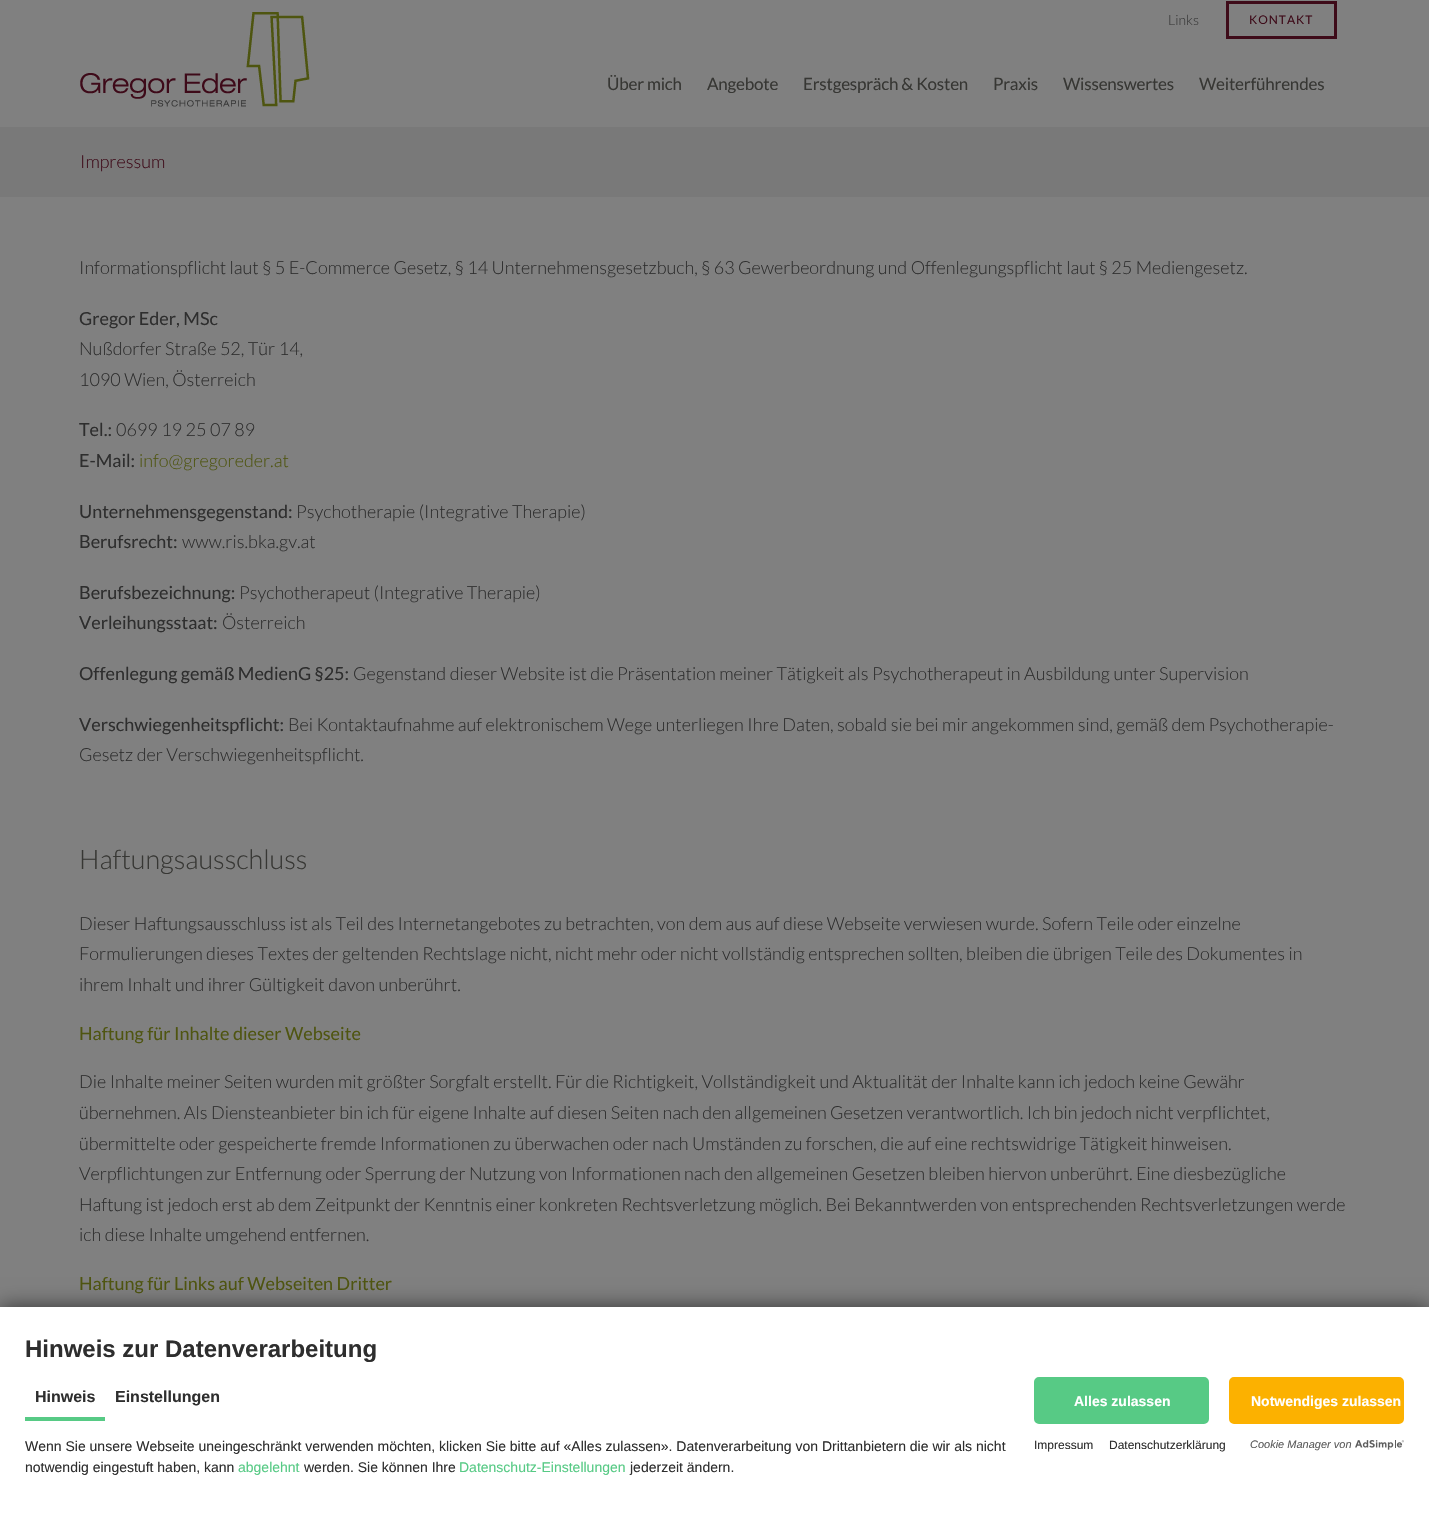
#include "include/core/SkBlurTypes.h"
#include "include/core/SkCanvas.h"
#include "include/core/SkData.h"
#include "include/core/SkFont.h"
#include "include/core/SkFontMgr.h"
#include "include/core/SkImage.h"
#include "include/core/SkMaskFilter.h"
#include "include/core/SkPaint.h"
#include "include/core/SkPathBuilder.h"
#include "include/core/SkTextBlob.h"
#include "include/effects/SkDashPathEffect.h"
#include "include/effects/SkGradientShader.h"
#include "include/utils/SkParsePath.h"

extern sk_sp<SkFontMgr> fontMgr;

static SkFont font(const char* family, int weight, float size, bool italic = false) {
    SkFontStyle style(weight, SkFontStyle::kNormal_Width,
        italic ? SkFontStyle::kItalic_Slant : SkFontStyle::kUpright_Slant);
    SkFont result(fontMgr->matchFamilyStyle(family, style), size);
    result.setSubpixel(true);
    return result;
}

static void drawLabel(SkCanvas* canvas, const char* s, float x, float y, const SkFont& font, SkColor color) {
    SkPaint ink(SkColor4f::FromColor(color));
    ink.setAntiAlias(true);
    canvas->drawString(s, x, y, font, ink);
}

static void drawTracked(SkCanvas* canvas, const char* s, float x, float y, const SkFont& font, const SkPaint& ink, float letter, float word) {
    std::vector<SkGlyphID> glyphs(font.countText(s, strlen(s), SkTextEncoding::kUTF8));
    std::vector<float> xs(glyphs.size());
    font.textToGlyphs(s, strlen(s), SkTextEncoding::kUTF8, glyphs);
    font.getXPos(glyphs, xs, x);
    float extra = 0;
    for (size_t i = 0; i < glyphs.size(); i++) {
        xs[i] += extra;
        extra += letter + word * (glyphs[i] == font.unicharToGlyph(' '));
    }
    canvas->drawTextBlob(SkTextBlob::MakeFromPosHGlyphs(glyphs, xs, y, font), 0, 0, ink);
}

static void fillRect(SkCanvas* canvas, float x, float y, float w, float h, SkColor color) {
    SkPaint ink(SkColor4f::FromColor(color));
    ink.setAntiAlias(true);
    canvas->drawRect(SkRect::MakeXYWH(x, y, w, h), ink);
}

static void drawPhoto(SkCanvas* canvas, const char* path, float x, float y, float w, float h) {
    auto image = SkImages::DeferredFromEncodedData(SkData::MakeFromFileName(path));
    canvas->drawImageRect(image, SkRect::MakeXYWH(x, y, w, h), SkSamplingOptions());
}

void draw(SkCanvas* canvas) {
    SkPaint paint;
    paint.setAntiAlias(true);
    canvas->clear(0xFF808080);
    SkFont font1 = font("Lato", 300, 14);
    drawLabel(canvas, "Links", 1168, 25, font1, 0xFF3A3A3A);
    paint.setStroke(true);
    paint.setStrokeWidth(3);
    paint.setColor(0xFF3E0B19);
    canvas->drawRect(SkRect::MakeXYWH(1227.5f, 2.5f, 108, 35), paint);
    SkFont font2 = font("Lato", 400, 12);
    paint.setStroke(false);
    drawTracked(canvas, "KONTAKT", 1249, 24, font2, paint, 1, 0);
    drawPhoto(canvas, "assets/img1.png", 80, 12, 230, 95);
    SkFont font3 = font("Lato", 400, 17);
    paint.setColor(0xFF373734);
    drawTracked(canvas, "Über mich", 607, 90, font3, paint, -0.2f, 0);
    drawTracked(canvas, "Angebote", 707, 90, font3, paint, -0.2f, 0);
    drawTracked(canvas, "Erstgespräch & Kosten", 803, 90, font3, paint, -0.2f, 0);
    drawTracked(canvas, "Praxis", 993, 90, font3, paint, -0.2f, 0);
    drawTracked(canvas, "Wissenswertes", 1063, 90, font3, paint, -0.2f, 0);
    drawTracked(canvas, "Weiterführendes", 1199, 90, font3, paint, -0.2f, 0);
    fillRect(canvas, 0, 127, 1429, 70, 0xFF797979);
    SkFont font4 = font("Lato", 300, 18);
    drawLabel(canvas, "Impressum", 80, 168, font4, 0xFF3E0B19);
    drawLabel(canvas, "Informationspflicht laut § 5 E-Commerce Gesetz, § 14 Unternehmensgesetzbuch, § 63 Gewerbeordnung und Offenlegungspflicht laut § 25 Mediengesetz.", 79, 274, font4, 0xFF2E2E2E);
    SkFont font5 = font("Lato", 400, 18);
    drawLabel(canvas, "Gregor Eder, MSc", 79, 325, font5, 0xFF2E2E2E);
    drawLabel(canvas, "Nußdorfer Straße 52, Tür 14,", 79, 355, font4, 0xFF2E2E2E);
    drawLabel(canvas, "1090 Wien, Österreich", 79, 386, font4, 0xFF2E2E2E);
    drawLabel(canvas, "Tel.:", 79, 436, font5, 0xFF2E2E2E);
    drawLabel(canvas, "0699 19 25 07 89", 116, 436, font4, 0xFF2E2E2E);
    drawLabel(canvas, "E-Mail:", 79, 467, font5, 0xFF2E2E2E);
    drawLabel(canvas, "info@gregoreder.at", 139, 467, font4, 0xFF4F5511);
    drawLabel(canvas, "Unternehmensgegenstand:", 79, 518, font5, 0xFF2E2E2E);
    drawLabel(canvas, "Psychotherapie (Integrative Therapie)", 296, 518, font4, 0xFF2E2E2E);
    drawLabel(canvas, "Berufsrecht:", 79, 548, font5, 0xFF2E2E2E);
    drawLabel(canvas, "www.ris.bka.gv.at", 182, 548, font4, 0xFF2E2E2E);
    drawLabel(canvas, "Berufsbezeichnung:", 79, 599, font5, 0xFF2E2E2E);
    drawLabel(canvas, "Psychotherapeut (Integrative Therapie)", 239, 599, font4, 0xFF2E2E2E);
    drawLabel(canvas, "Verleihungsstaat:", 79, 629, font5, 0xFF2E2E2E);
    drawLabel(canvas, "Österreich", 222, 629, font4, 0xFF2E2E2E);
    drawLabel(canvas, "Offenlegung gemäß MedienG §25:", 79, 680, font5, 0xFF2E2E2E);
    drawLabel(canvas, "Gegenstand dieser Website ist die Präsentation meiner Tätigkeit als Psychotherapeut in Ausbildung unter Supervision", 353, 680, font4, 0xFF2E2E2E);
    drawLabel(canvas, "Verschwiegenheitspflicht:", 79, 731, font5, 0xFF2E2E2E);
    drawLabel(canvas, "Bei Kontaktaufnahme auf elektronischem Wege unterliegen Ihre Daten, sobald sie bei mir angekommen sind, gemäß dem Psychotherapie-", 288, 731, font4, 0xFF2E2E2E);
    drawLabel(canvas, "Gesetz der Verschwiegenheitspflicht.", 79, 761, font4, 0xFF2E2E2E);
    SkFont font6 = font("Lato", 300, 27);
    drawLabel(canvas, "Haftungsausschluss", 79, 869, font6, 0xFF373734);
    drawLabel(canvas, "Dieser Haftungsausschluss ist als Teil des Internetangebotes zu betrachten, von dem aus auf diese Webseite verwiesen wurde. Sofern Teile oder einzelne", 79, 930, font4, 0xFF2E2E2E);
    drawLabel(canvas, "Formulierungen dieses Textes der geltenden Rechtslage nicht, nicht mehr oder nicht vollständig entsprechen sollten, bleiben die übrigen Teile des Dokumentes in", 79, 960, font4, 0xFF2E2E2E);
    drawLabel(canvas, "ihrem Inhalt und ihrer Gültigkeit davon unberührt.", 79, 991, font4, 0xFF2E2E2E);
    drawLabel(canvas, "Haftung für Inhalte dieser Webseite", 79, 1040, font5, 0xFF4F5511);
    drawLabel(canvas, "Die Inhalte meiner Seiten wurden mit größter Sorgfalt erstellt. Für die Richtigkeit, Vollständigkeit und Aktualität der Inhalte kann ich jedoch keine Gewähr", 79, 1088, font4, 0xFF2E2E2E);
    drawLabel(canvas, "übernehmen. Als Diensteanbieter bin ich für eigene Inhalte auf diesen Seiten nach den allgemeinen Gesetzen verantwortlich. Ich bin jedoch nicht verpflichtet,", 79, 1119, font4, 0xFF2E2E2E);
    drawLabel(canvas, "übermittelte oder gespeicherte fremde Informationen zu überwachen oder nach Umständen zu forschen, die auf eine rechtswidrige Tätigkeit hinweisen.", 79, 1150, font4, 0xFF2E2E2E);
    drawLabel(canvas, "Verpflichtungen zur Entfernung oder Sperrung der Nutzung von Informationen nach den allgemeinen Gesetzen bleiben hiervon unberührt. Eine diesbezügliche", 79, 1180, font4, 0xFF2E2E2E);
    drawLabel(canvas, "Haftung ist jedoch erst ab dem Zeitpunkt der Kenntnis einer konkreten Rechtsverletzung möglich. Bei Bekanntwerden von entsprechenden Rechtsverletzungen werde", 79, 1211, font4, 0xFF2E2E2E);
    drawLabel(canvas, "ich diese Inhalte umgehend entfernen.", 79, 1241, font4, 0xFF2E2E2E);
    drawLabel(canvas, "Haftung für Links auf Webseiten Dritter", 79, 1290, font5, 0xFF4F5511);
    paint.setColor(0x99000000);
    paint.setMaskFilter(SkMaskFilter::MakeBlur(kNormal_SkBlurStyle, 10));
    canvas->drawRect(SkRect::MakeXYWH(0, 1307, 1429, 220), paint);
    paint.setMaskFilter(nullptr);
    fillRect(canvas, 0, 1307, 1429, 220, 0xFFFFFFFF);
    SkFont font7 = font("Liberation Sans", 700, 24);
    drawLabel(canvas, "Hinweis zur Datenverarbeitung", 25, 1357, font7, 0xFF2E2E2E);
    fillRect(canvas, 25, 1417, 80, 4, 0xFF57CA85);
    SkFont font8 = font("Liberation Sans", 700, 16);
    drawLabel(canvas, "Hinweis", 35, 1402, font8, 0xFF2E2E2E);
    drawLabel(canvas, "Einstellungen", 115, 1402, font8, 0xFF2E2E2E);
    SkFont font9 = font("Liberation Sans", 400, 14);
    drawLabel(canvas, "Wenn Sie unsere Webseite uneingeschränkt verwenden möchten, klicken Sie bitte auf «Alles zulassen». Datenverarbeitung von Drittanbietern die wir als nicht", 25, 1451, font9, 0xFF2E2E2E);
    drawLabel(canvas, "notwendig eingestuft haben, kann", 25, 1472, font9, 0xFF2E2E2E);
    drawLabel(canvas, "abgelehnt", 238, 1472, font9, 0xFF57CA85);
    drawLabel(canvas, "werden. Sie können Ihre", 304, 1472, font9, 0xFF2E2E2E);
    drawLabel(canvas, "Datenschutz-Einstellungen", 459, 1472, font9, 0xFF57CA85);
    drawLabel(canvas, "jederzeit ändern.", 630, 1472, font9, 0xFF2E2E2E);
    paint.setColor(0xFF57CA85);
    canvas->drawRoundRect(SkRect::MakeXYWH(1035, 1378, 173, 45), 4, 4, paint);
    paint.setStroke(true);
    paint.setStrokeWidth(2);
    canvas->drawRoundRect(SkRect::MakeXYWH(1035, 1378, 173, 45), 4, 4, paint);
    SkFont font10 = font("Liberation Sans", 700, 14);
    drawLabel(canvas, "Alles zulassen", 1074, 1406, font10, 0xFFFFFFFF);
    paint.setStroke(false);
    paint.setColor(0xFFFCB100);
    canvas->drawRoundRect(SkRect::MakeXYWH(1230, 1378, 173, 45), 4, 4, paint);
    paint.setStroke(true);
    canvas->drawRoundRect(SkRect::MakeXYWH(1230, 1378, 173, 45), 4, 4, paint);
    drawLabel(canvas, "Notwendiges zulassen", 1251, 1406, font10, 0xFFFFFFFF);
    SkFont font11 = font("Liberation Sans", 400, 12);
    drawLabel(canvas, "Impressum", 1034, 1449, font11, 0xFF2E2E2E);
    drawLabel(canvas, "Datenschutzerklärung", 1109, 1449, font11, 0xFF2E2E2E);
    SkFont font12 = font("Liberation Sans", 400, 11, true);
    drawLabel(canvas, "Cookie Manager von", 1250, 1448, font12, 0xFF5C5C5C);
    drawPhoto(canvas, "assets/img2.png", 1355, 1440, 49, 10);
}
